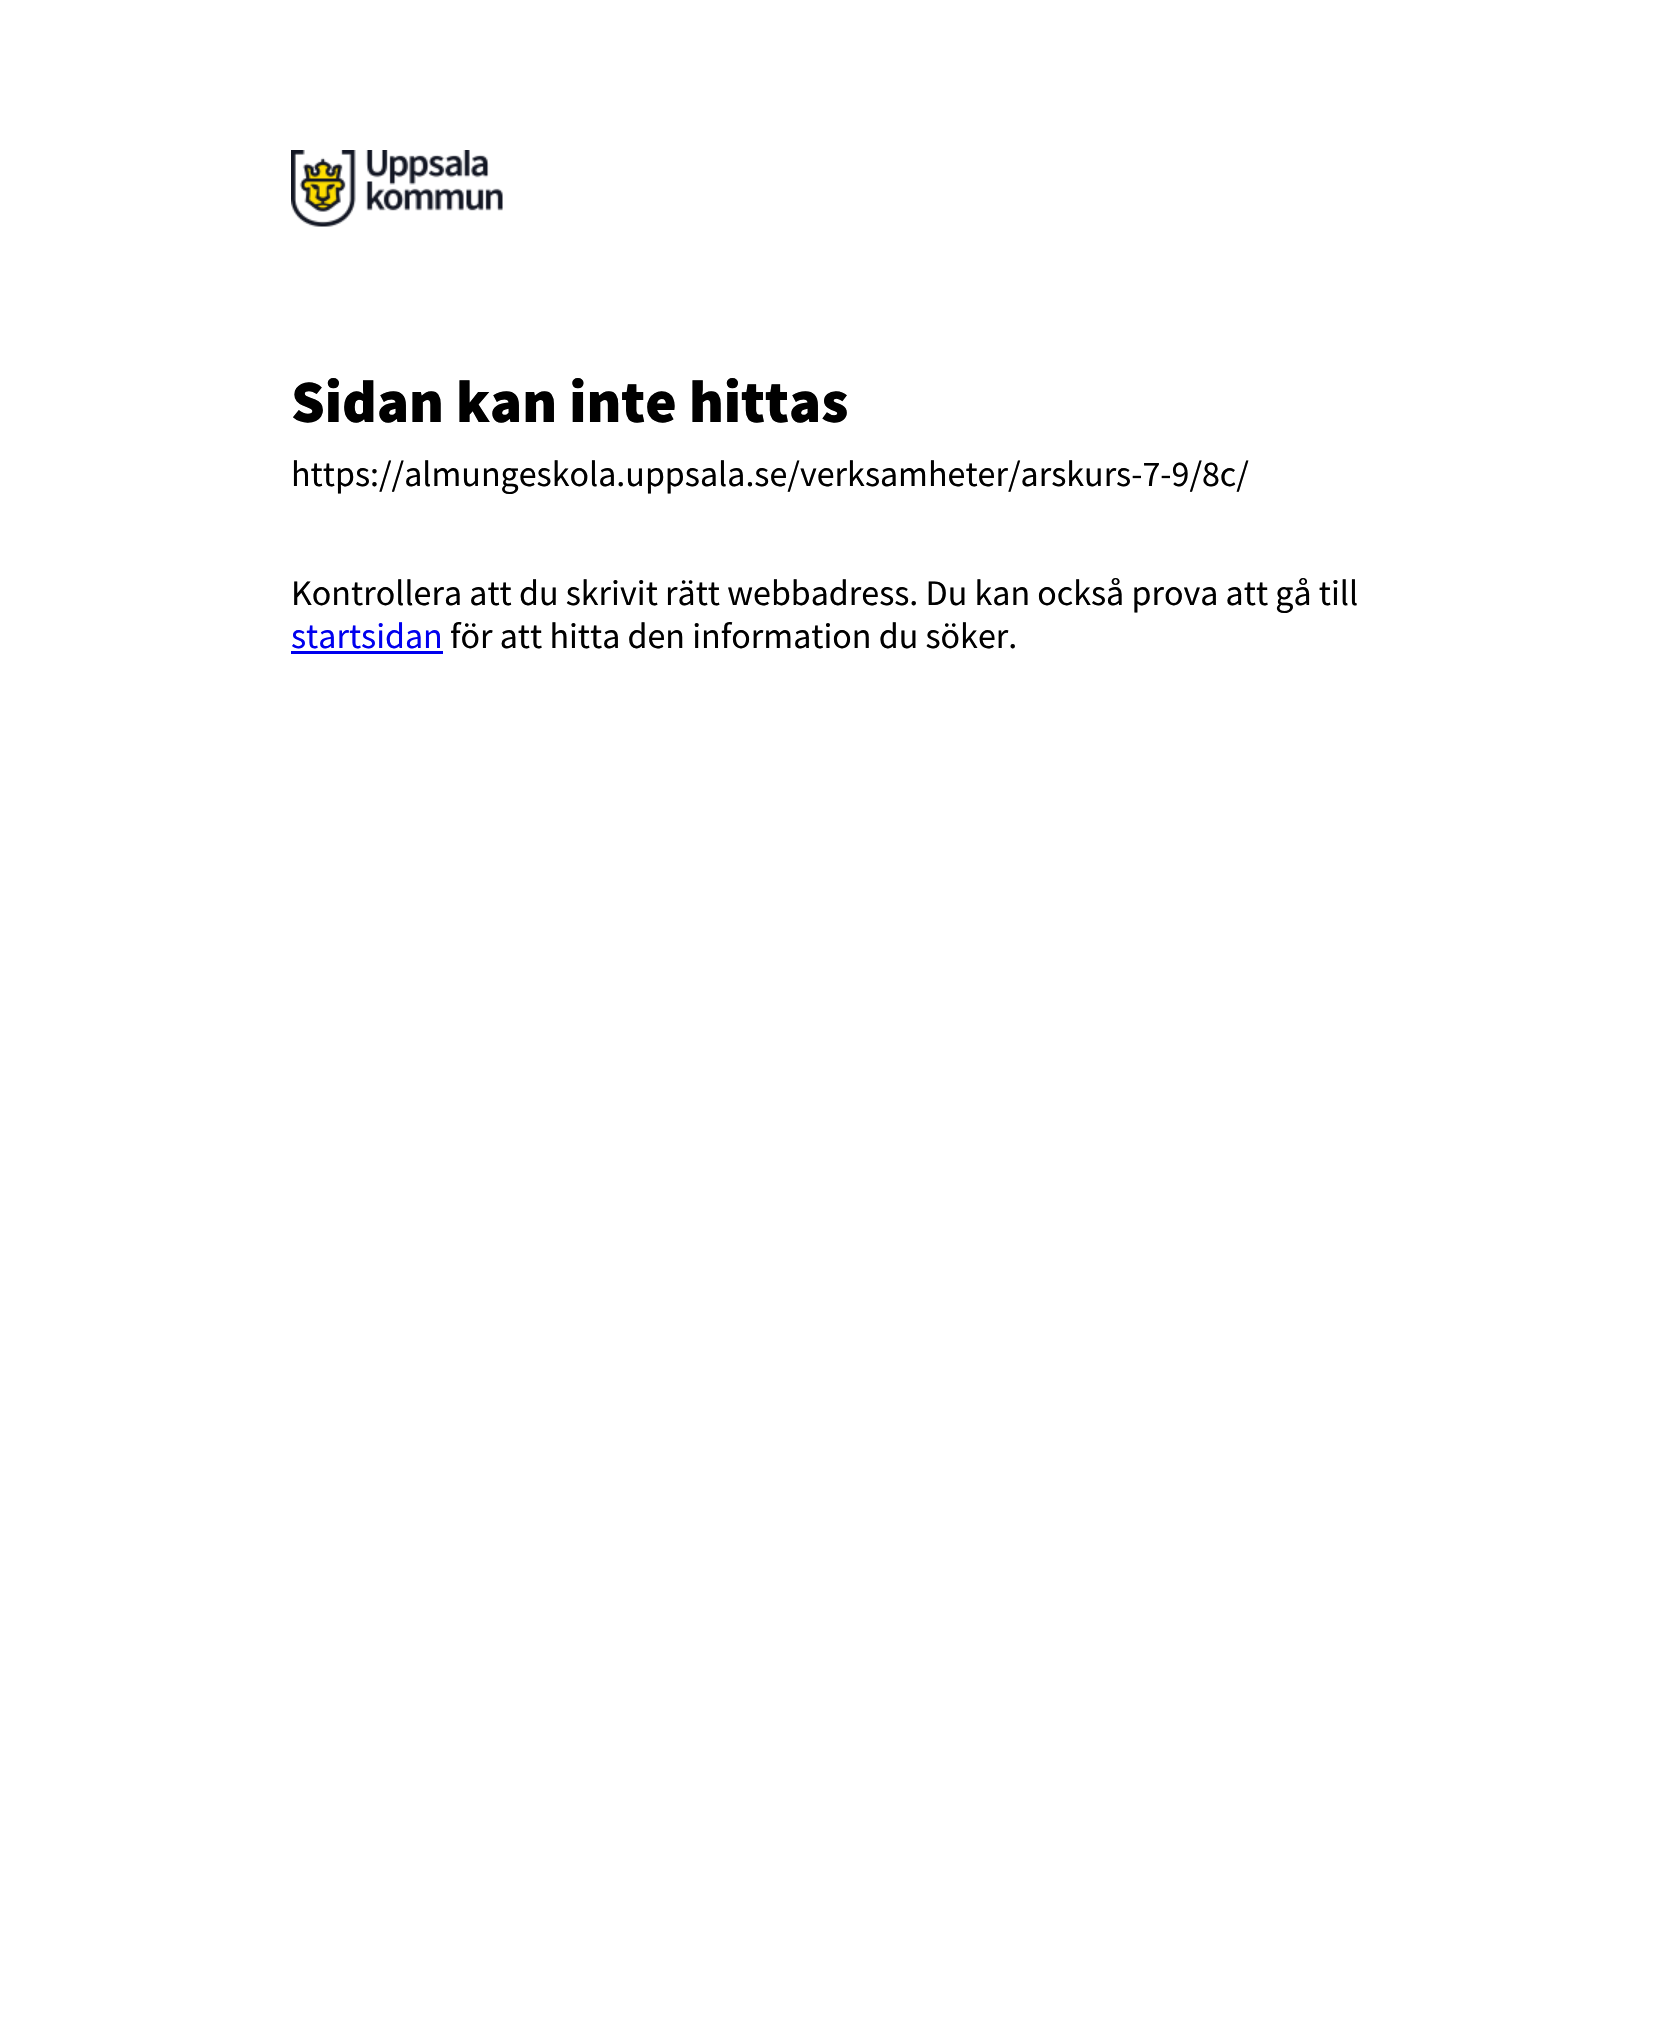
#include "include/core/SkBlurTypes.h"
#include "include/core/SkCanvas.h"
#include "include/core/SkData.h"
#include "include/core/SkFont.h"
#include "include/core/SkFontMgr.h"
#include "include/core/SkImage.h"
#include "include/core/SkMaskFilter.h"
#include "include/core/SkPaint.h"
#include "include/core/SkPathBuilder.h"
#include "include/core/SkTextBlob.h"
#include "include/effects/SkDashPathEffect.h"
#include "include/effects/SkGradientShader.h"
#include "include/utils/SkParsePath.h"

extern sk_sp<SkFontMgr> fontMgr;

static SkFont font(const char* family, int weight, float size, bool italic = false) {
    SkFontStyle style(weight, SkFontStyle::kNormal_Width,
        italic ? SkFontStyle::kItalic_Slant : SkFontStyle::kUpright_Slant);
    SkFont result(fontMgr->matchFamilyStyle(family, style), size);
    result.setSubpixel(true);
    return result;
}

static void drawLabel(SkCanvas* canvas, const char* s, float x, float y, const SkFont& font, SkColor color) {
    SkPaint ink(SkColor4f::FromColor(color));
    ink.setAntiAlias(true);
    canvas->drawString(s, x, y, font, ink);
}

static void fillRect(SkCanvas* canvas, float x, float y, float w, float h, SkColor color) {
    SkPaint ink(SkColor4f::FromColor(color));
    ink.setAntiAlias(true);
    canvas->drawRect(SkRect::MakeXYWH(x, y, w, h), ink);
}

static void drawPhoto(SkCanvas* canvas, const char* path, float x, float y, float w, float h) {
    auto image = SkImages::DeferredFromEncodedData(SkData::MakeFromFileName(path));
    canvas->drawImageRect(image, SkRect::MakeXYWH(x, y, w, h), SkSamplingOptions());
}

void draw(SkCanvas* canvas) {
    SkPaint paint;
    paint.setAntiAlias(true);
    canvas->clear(0xFFFFFFFF);
    drawPhoto(canvas, "assets/img1.png", 291, 150, 212, 77);
    SkFont font1 = font("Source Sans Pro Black", 900, 60);
    drawLabel(canvas, "Sidan kan inte hittas", 291, 422, font1, 0xFF000000);
    SkFont font2 = font("Source Sans Pro", 400, 36);
    drawLabel(canvas, "https://almungeskola.uppsala.se/verksamheter/arskurs-7-9/8c/", 291, 486, font2, 0xFF000000);
    drawLabel(canvas, "Kontrollera att du skrivit rätt webbadress. Du kan också prova att gå till", 291, 605, font2, 0xFF000000);
    drawLabel(canvas, "startsidan", 291, 648, font2, 0xFF0000EE);
    fillRect(canvas, 291, 651, 152, 3, 0xFF0000EE);
    drawLabel(canvas, "för att hitta den information du söker.", 450, 648, font2, 0xFF000000);
}
